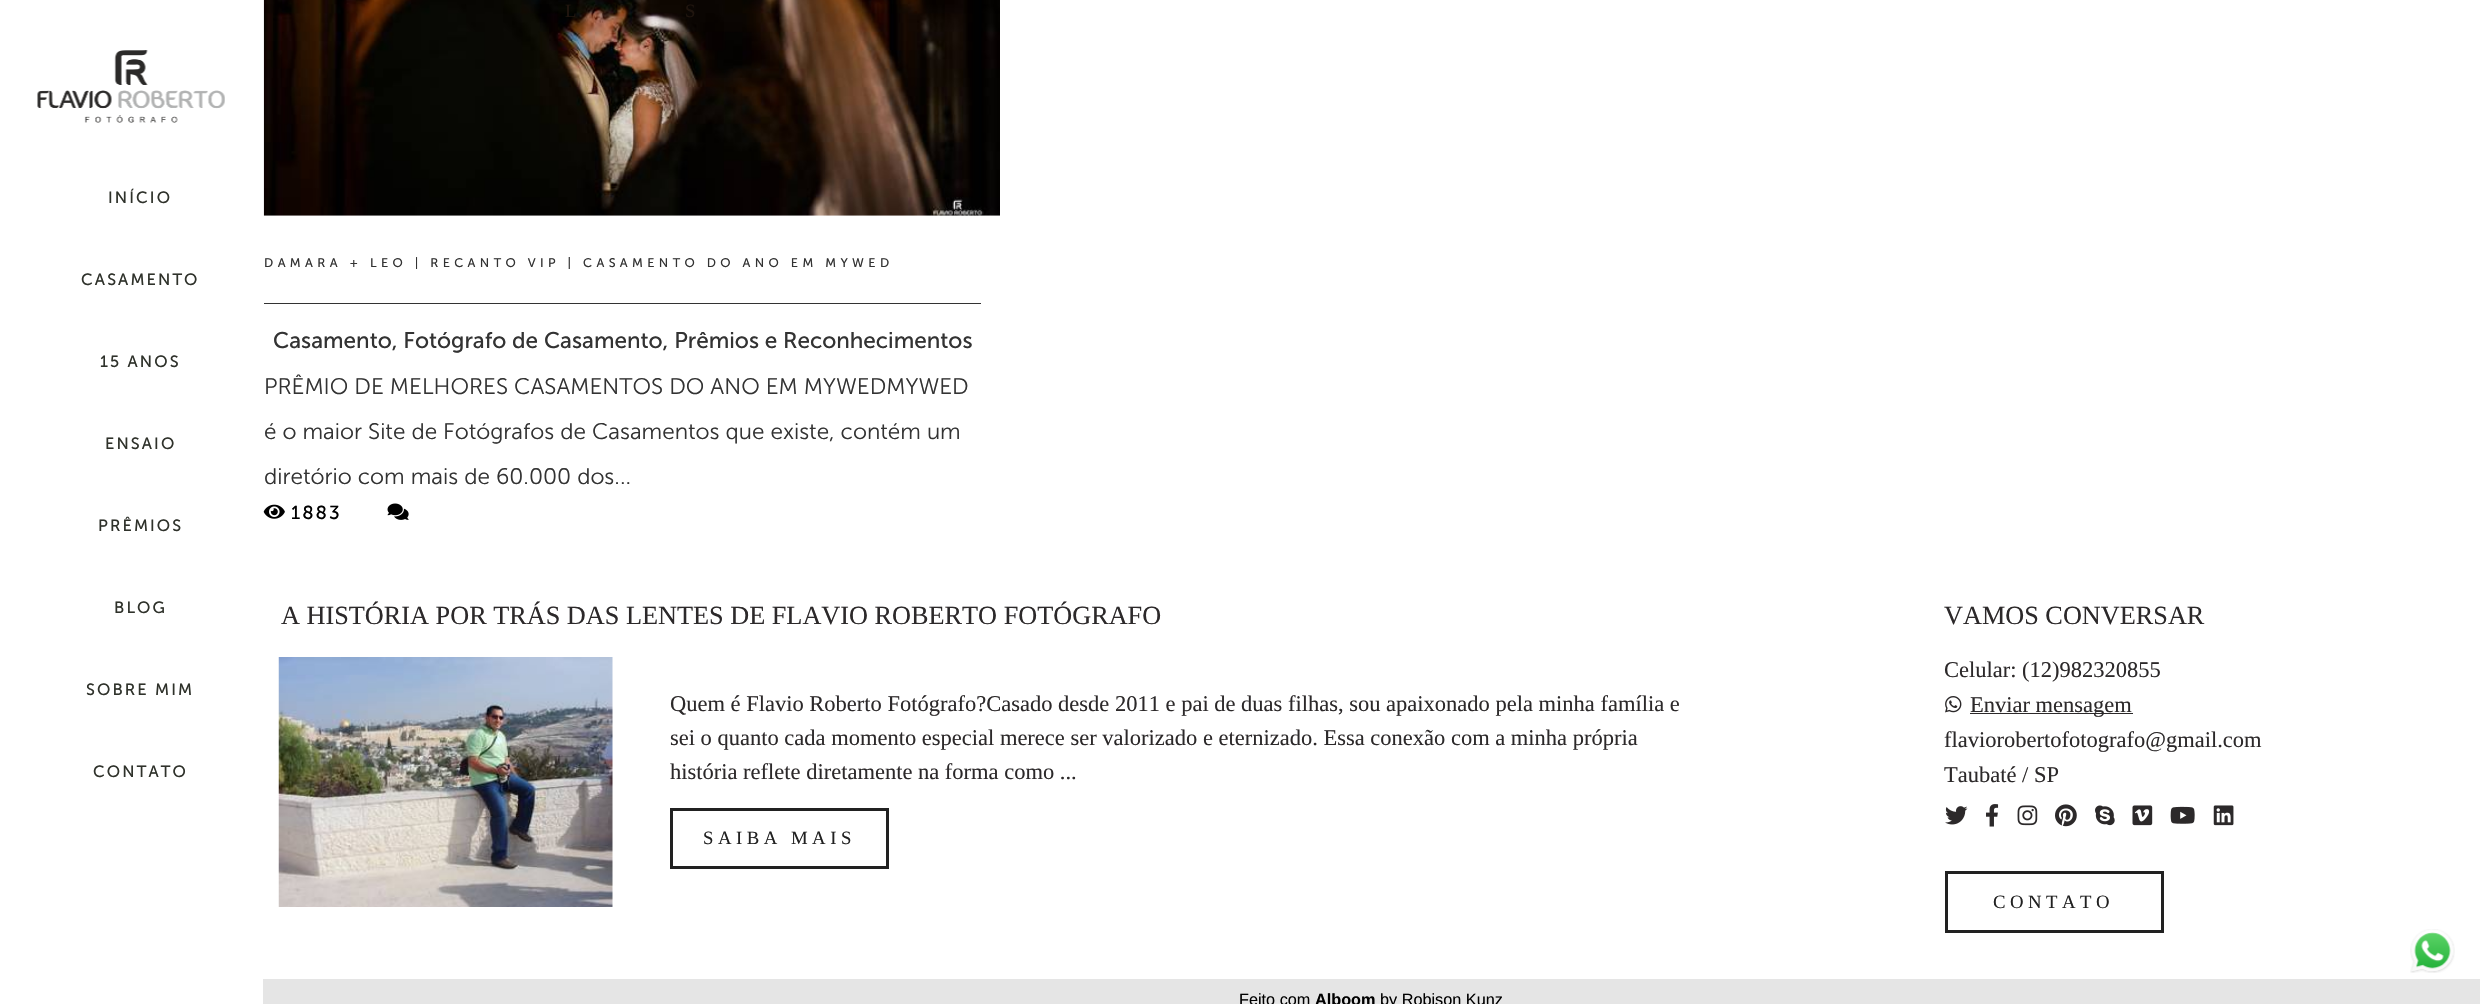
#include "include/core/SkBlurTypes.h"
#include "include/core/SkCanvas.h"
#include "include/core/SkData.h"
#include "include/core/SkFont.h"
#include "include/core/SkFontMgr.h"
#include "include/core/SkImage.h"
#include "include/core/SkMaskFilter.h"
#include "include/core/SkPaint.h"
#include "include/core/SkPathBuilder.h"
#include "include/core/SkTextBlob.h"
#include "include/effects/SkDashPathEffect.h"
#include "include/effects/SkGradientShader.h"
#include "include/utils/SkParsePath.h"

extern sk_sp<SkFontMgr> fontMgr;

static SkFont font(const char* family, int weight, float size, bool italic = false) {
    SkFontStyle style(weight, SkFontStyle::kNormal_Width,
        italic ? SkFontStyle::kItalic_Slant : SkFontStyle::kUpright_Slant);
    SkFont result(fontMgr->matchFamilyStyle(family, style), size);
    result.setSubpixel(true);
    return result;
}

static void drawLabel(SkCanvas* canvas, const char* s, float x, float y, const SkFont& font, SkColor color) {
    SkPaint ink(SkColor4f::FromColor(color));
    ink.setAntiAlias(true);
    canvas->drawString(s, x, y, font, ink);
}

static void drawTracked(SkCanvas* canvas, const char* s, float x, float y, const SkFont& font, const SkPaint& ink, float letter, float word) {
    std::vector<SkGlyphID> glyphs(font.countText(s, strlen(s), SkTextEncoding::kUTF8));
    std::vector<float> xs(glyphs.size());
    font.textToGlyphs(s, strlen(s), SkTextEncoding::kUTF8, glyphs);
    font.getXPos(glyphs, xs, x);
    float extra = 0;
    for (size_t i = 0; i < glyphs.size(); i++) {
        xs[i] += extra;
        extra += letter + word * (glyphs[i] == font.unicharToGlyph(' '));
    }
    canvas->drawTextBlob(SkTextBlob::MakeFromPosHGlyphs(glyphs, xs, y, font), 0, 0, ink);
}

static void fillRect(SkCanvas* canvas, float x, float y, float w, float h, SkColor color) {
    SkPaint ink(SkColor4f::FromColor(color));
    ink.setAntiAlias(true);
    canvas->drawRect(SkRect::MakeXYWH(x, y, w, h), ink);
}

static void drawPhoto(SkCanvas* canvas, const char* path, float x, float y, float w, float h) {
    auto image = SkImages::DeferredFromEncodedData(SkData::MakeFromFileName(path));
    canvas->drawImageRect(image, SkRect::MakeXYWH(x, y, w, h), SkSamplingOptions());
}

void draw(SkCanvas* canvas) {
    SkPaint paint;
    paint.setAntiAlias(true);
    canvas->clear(0xFFFFFFFF);
    drawPhoto(canvas, "assets/img1.png", 37, 50, 188, 73);
    SkFont font1 = font("Museo Sans", 400, 16.25f);
    paint.setColor(0xFF2F322B);
    drawTracked(canvas, "INÍCIO", 108, 203, font1, paint, 2.1f, 0);
    drawTracked(canvas, "CASAMENTO", 81, 285, font1, paint, 2.1f, 0);
    drawTracked(canvas, "15 ANOS", 100, 367, font1, paint, 2.1f, 0);
    drawTracked(canvas, "ENSAIO", 105, 449, font1, paint, 2.1f, 0);
    drawTracked(canvas, "PRÊMIOS", 98, 531, font1, paint, 2.1f, 0);
    drawTracked(canvas, "BLOG", 114, 613, font1, paint, 2.1f, 0);
    drawTracked(canvas, "SOBRE MIM", 86, 695, font1, paint, 2.1f, 0);
    drawTracked(canvas, "CONTATO", 93, 777, font1, paint, 2.1f, 0);
    drawPhoto(canvas, "assets/img2.png", 263, 0, 737, 216);
    SkFont font2 = font("Liberation Serif", 400, 18.75f);
    paint.setColor(0xFF20150E);
    drawTracked(canvas, "L", 565, 17, font2, paint, 4.5f, 0);
    drawTracked(canvas, "S", 685, 17, font2, paint, 4.5f, 0);
    fillRect(canvas, 264, 303, 717, 1, 0xFF333333);
    SkFont font3 = font("Museo Sans", 400, 12.5f);
    paint.setColor(0xFF333333);
    drawTracked(canvas, "DAMARA + LEO | RECANTO VIP | CASAMENTO DO ANO EM MYWED", 264, 267, font3, paint, 4.38f, 0);
    SkFont font4 = font("Museo Sans", 400, 22.5f);
    drawLabel(canvas, "Casamento, Fotógrafo de Casamento, Prêmios e Reconhecimentos", 273, 348, font4, 0xFF333333);
    SkFont font5 = font("Museo Sans", 300, 22.5f);
    drawLabel(canvas, "PRÊMIO DE MELHORES CASAMENTOS DO ANO EM MYWEDMYWED", 264, 394, font5, 0xFF333333);
    drawLabel(canvas, "é o maior Site de Fotógrafos de Casamentos que existe, contém um", 264, 439, font5, 0xFF333333);
    drawLabel(canvas, "diretório com mais de 60.000 dos...", 264, 484, font5, 0xFF333333);
    drawPhoto(canvas, "assets/img3.png", 263, 504, 22, 15);
    SkFont font6 = font("Museo Sans", 400, 18.75f);
    paint.setColor(0xFF000000);
    drawTracked(canvas, "1883", 291, 519, font6, paint, 2, 0);
    drawPhoto(canvas, "assets/img4.png", 387, 503, 22, 17);
    SkFont font7 = font("Liberation Serif", 400, 26.25f);
    drawLabel(canvas, "A HISTÓRIA POR TRÁS DAS LENTES DE FLAVIO ROBERTO FOTÓGRAFO", 281, 624, font7, 0xFF2C292A);
    drawPhoto(canvas, "assets/img5.png", 278, 657, 335, 250);
    SkFont font8 = font("Liberation Serif", 400, 22.5f);
    drawLabel(canvas, "Quem é Flavio Roberto Fotógrafo?Casado desde 2011 e pai de duas filhas, sou apaixonado pela minha família e", 670, 711, font8, 0xFF2C292A);
    drawLabel(canvas, "sei o quanto cada momento especial merece ser valorizado e eternizado. Essa conexão com a minha própria", 670, 745, font8, 0xFF2C292A);
    drawLabel(canvas, "história reflete diretamente na forma como ...", 670, 779, font8, 0xFF2C292A);
    paint.setStroke(true);
    paint.setStrokeWidth(3);
    paint.setColor(0xFF212121);
    canvas->drawRect(SkRect::MakeXYWH(671.5f, 809.5f, 216, 58), paint);
    paint.setStroke(false);
    drawTracked(canvas, "SAIBA MAIS", 703, 844, font2, paint, 4.5f, 0);
    drawLabel(canvas, "VAMOS CONVERSAR", 1944, 624, font7, 0xFF2C292A);
    drawLabel(canvas, "Celular: (12)982320855", 1944, 677, font8, 0xFF2C292A);
    drawPhoto(canvas, "assets/img6.png", 1945, 696, 17, 17);
    fillRect(canvas, 1970, 713, 163, 1, 0xFF2C292A);
    drawLabel(canvas, "Enviar mensagem", 1970, 712, font8, 0xFF2C292A);
    drawLabel(canvas, "flaviorobertofotografo@gmail.com", 1944, 747, font8, 0xFF2C292A);
    drawLabel(canvas, "Taubaté / SP", 1944, 782, font8, 0xFF2C292A);
    drawPhoto(canvas, "assets/img7.png", 1945, 806, 23, 19);
    drawPhoto(canvas, "assets/img8.png", 1986, 804, 13, 23);
    drawPhoto(canvas, "assets/img9.png", 2017, 805, 21, 21);
    drawPhoto(canvas, "assets/img10.png", 2055, 804, 22, 23);
    drawPhoto(canvas, "assets/img11.png", 2095, 805, 20, 21);
    drawPhoto(canvas, "assets/img12.png", 2132, 805, 21, 21);
    drawPhoto(canvas, "assets/img13.png", 2170, 806, 25, 18);
    drawPhoto(canvas, "assets/img14.png", 2213, 805, 21, 21);
    paint.setStroke(true);
    canvas->drawRect(SkRect::MakeXYWH(1946.5f, 872.5f, 216, 59), paint);
    paint.setStroke(false);
    drawTracked(canvas, "CONTATO", 1993, 908, font2, paint, 4.5f, 0);
    drawPhoto(canvas, "assets/img15.png", 2410, 929, 45, 44);
    fillRect(canvas, 263, 979, 2217, 25, 0xFFE5E5E5);
    SkFont font9 = font("Liberation Sans", 400, 16.25f);
    drawLabel(canvas, "Feito com", 1239, 1005, font9, 0xFF000000);
    SkFont font10 = font("Liberation Sans", 700, 16.25f);
    drawLabel(canvas, "Alboom", 1315, 1005, font10, 0xFF000000);
    drawLabel(canvas, "by Robison Kunz", 1380, 1005, font9, 0xFF000000);
}
